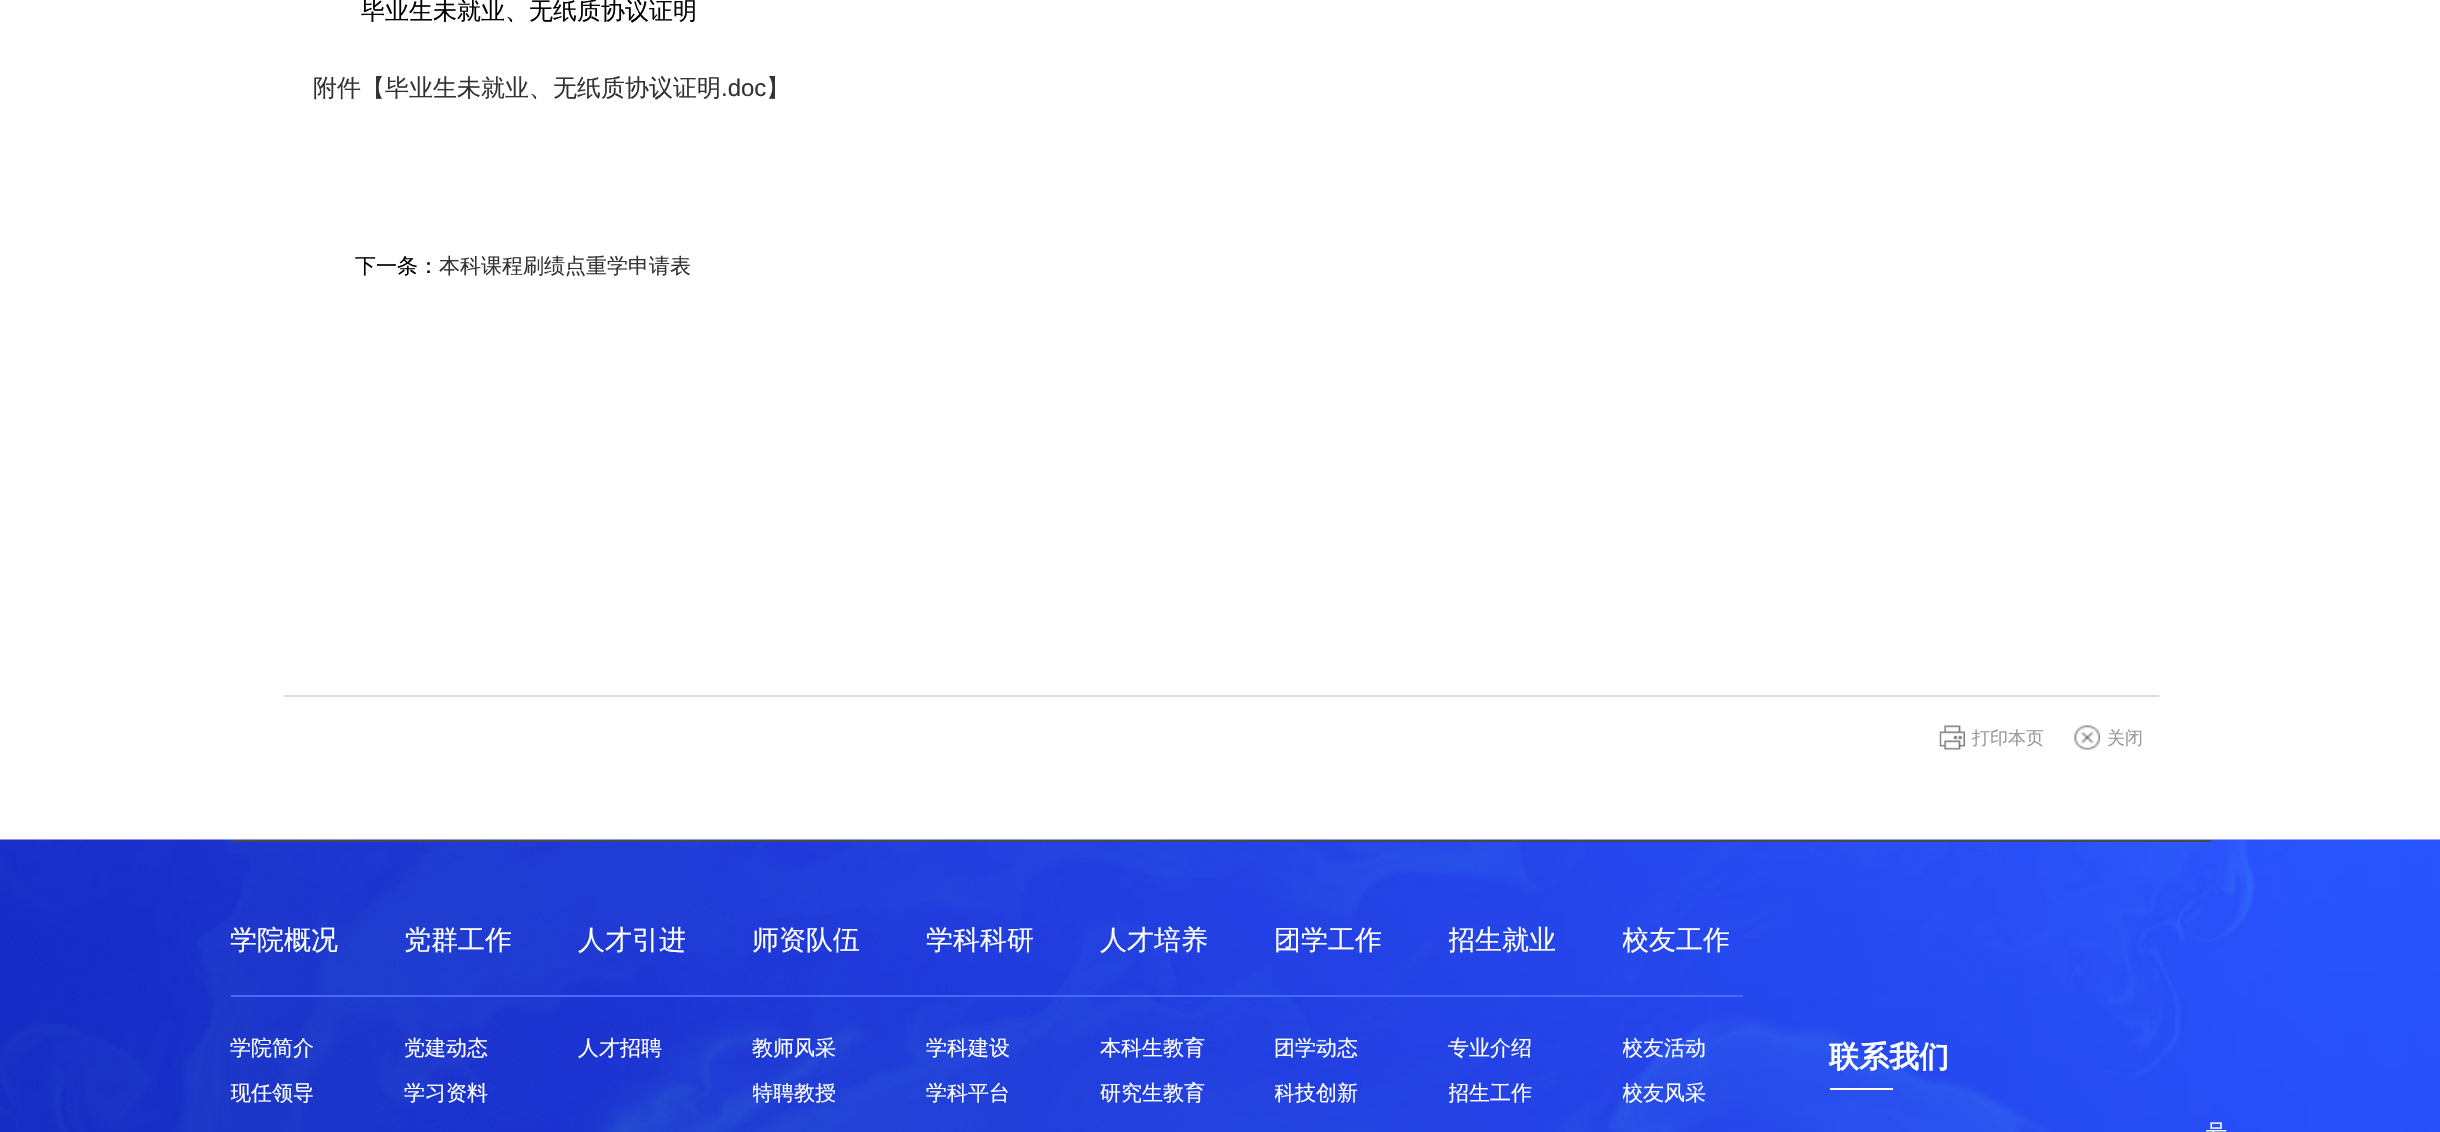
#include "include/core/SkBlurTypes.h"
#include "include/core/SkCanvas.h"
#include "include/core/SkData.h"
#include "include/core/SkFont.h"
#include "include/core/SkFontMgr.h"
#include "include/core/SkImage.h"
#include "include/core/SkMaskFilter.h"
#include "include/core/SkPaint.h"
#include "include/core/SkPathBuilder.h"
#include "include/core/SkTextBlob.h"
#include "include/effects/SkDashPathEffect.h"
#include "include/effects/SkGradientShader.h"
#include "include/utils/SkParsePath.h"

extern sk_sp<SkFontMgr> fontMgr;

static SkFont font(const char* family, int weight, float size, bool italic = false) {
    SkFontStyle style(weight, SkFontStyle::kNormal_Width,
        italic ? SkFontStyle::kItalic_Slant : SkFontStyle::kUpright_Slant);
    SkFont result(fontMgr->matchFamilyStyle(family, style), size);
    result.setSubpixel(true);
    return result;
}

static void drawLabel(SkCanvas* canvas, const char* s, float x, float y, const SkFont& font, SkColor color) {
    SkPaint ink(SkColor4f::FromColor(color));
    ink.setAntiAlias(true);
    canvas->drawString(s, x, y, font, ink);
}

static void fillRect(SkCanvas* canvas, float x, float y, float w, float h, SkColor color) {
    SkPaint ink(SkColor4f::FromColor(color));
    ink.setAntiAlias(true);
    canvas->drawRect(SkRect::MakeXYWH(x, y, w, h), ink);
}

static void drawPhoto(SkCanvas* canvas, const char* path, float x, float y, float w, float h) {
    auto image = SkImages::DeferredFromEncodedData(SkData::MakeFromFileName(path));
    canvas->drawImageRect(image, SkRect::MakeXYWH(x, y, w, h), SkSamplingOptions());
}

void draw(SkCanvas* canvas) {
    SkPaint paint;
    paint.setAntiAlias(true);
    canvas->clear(0xFFFFFFFF);
    SkFont font1 = font("WenQuanYi Zen Hei", 500, 24);
    drawLabel(canvas, "毕业生未就业、无纸质协议证明", 361, 19, font1, 0xFF000000);
    drawLabel(canvas, "附件【毕业生未就业、无纸质协议证明", 313, 96, font1, 0xFF333333);
    SkFont font2 = font("Liberation Sans", 400, 24);
    drawLabel(canvas, ".doc", 721, 96, font2, 0xFF333333);
    drawLabel(canvas, "】", 766, 96, font1, 0xFF333333);
    SkFont font3 = font("WenQuanYi Zen Hei", 500, 21);
    drawLabel(canvas, "下一条：", 355, 273, font3, 0xFF000000);
    drawLabel(canvas, "本科课程刷绩点重学申请表", 439, 273, font3, 0xFF333333);
    fillRect(canvas, 284, 695, 1875, 2, 0xFFDBDEE1);
    drawPhoto(canvas, "assets/img1.png", 1939, 725, 26, 25);
    SkFont font4 = font("WenQuanYi Zen Hei", 500, 18);
    drawLabel(canvas, "打印本页", 1972, 744, font4, 0xFF999999);
    drawPhoto(canvas, "assets/img2.png", 2074, 725, 26, 25);
    drawLabel(canvas, "关闭", 2107, 744, font4, 0xFF999999);
    drawPhoto(canvas, "assets/img3.png", 0, 839, 2440, 293);
    fillRect(canvas, 231, 840, 1980, 2, 0xFF464A50);
    fillRect(canvas, 231, 995, 1512, 2, 0xFF466AFE);
    SkFont font5 = font("WenQuanYi Zen Hei", 500, 27);
    drawLabel(canvas, "学院概况", 230, 949, font5, 0xFFFFFFFF);
    drawLabel(canvas, "学院简介", 230, 1055, font3, 0xFFFFFFFF);
    canvas->save();
    canvas->clipRect(SkRect::MakeXYWH(231, 914, 174, 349));
    drawLabel(canvas, "现任领导", 230, 1100, font3, 0xFFFFFFFF);
    canvas->restore();
    drawLabel(canvas, "党群工作", 404, 949, font5, 0xFFFFFFFF);
    drawLabel(canvas, "党建动态", 404, 1055, font3, 0xFFFFFFFF);
    drawLabel(canvas, "学习资料", 404, 1100, font3, 0xFFFFFFFF);
    drawLabel(canvas, "人才引进", 578, 949, font5, 0xFFFFFFFF);
    drawLabel(canvas, "人才招聘", 578, 1055, font3, 0xFFFFFFFF);
    drawLabel(canvas, "师资队伍", 752, 949, font5, 0xFFFFFFFF);
    drawLabel(canvas, "教师风采", 752, 1055, font3, 0xFFFFFFFF);
    canvas->save();
    canvas->clipRect(SkRect::MakeXYWH(753, 914, 174, 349));
    drawLabel(canvas, "特聘教授", 752, 1100, font3, 0xFFFFFFFF);
    canvas->restore();
    drawLabel(canvas, "学科科研", 926, 949, font5, 0xFFFFFFFF);
    drawLabel(canvas, "学科建设", 926, 1055, font3, 0xFFFFFFFF);
    drawLabel(canvas, "学科平台", 926, 1100, font3, 0xFFFFFFFF);
    drawLabel(canvas, "人才培养", 1100, 949, font5, 0xFFFFFFFF);
    drawLabel(canvas, "本科生教育", 1100, 1055, font3, 0xFFFFFFFF);
    drawLabel(canvas, "研究生教育", 1100, 1100, font3, 0xFFFFFFFF);
    drawLabel(canvas, "团学工作", 1274, 949, font5, 0xFFFFFFFF);
    drawLabel(canvas, "团学动态", 1274, 1055, font3, 0xFFFFFFFF);
    canvas->save();
    canvas->clipRect(SkRect::MakeXYWH(1275, 914, 174, 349));
    drawLabel(canvas, "科技创新", 1274, 1100, font3, 0xFFFFFFFF);
    canvas->restore();
    canvas->save();
    canvas->clipRect(SkRect::MakeXYWH(1449, 914, 174, 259));
    drawLabel(canvas, "招生就业", 1448, 949, font5, 0xFFFFFFFF);
    canvas->restore();
    drawLabel(canvas, "专业介绍", 1448, 1055, font3, 0xFFFFFFFF);
    canvas->save();
    canvas->clipRect(SkRect::MakeXYWH(1449, 914, 174, 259));
    drawLabel(canvas, "招生工作", 1448, 1100, font3, 0xFFFFFFFF);
    canvas->restore();
    canvas->save();
    canvas->clipRect(SkRect::MakeXYWH(1623, 914, 120, 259));
    drawLabel(canvas, "校友工作", 1622, 949, font5, 0xFFFFFFFF);
    drawLabel(canvas, "校友活动", 1622, 1055, font3, 0xFFFFFFFF);
    drawLabel(canvas, "校友风采", 1622, 1100, font3, 0xFFFFFFFF);
    canvas->restore();
    SkFont font6 = font("WenQuanYi Zen Hei", 700, 30);
    drawLabel(canvas, "联系我们", 1829, 1067, font6, 0xFFFFFFFF);
    fillRect(canvas, 1830, 1088, 63, 2, 0xFFFFFFFF);
    drawLabel(canvas, "号", 2206, 1139, font3, 0xFFFFFFFF);
}
